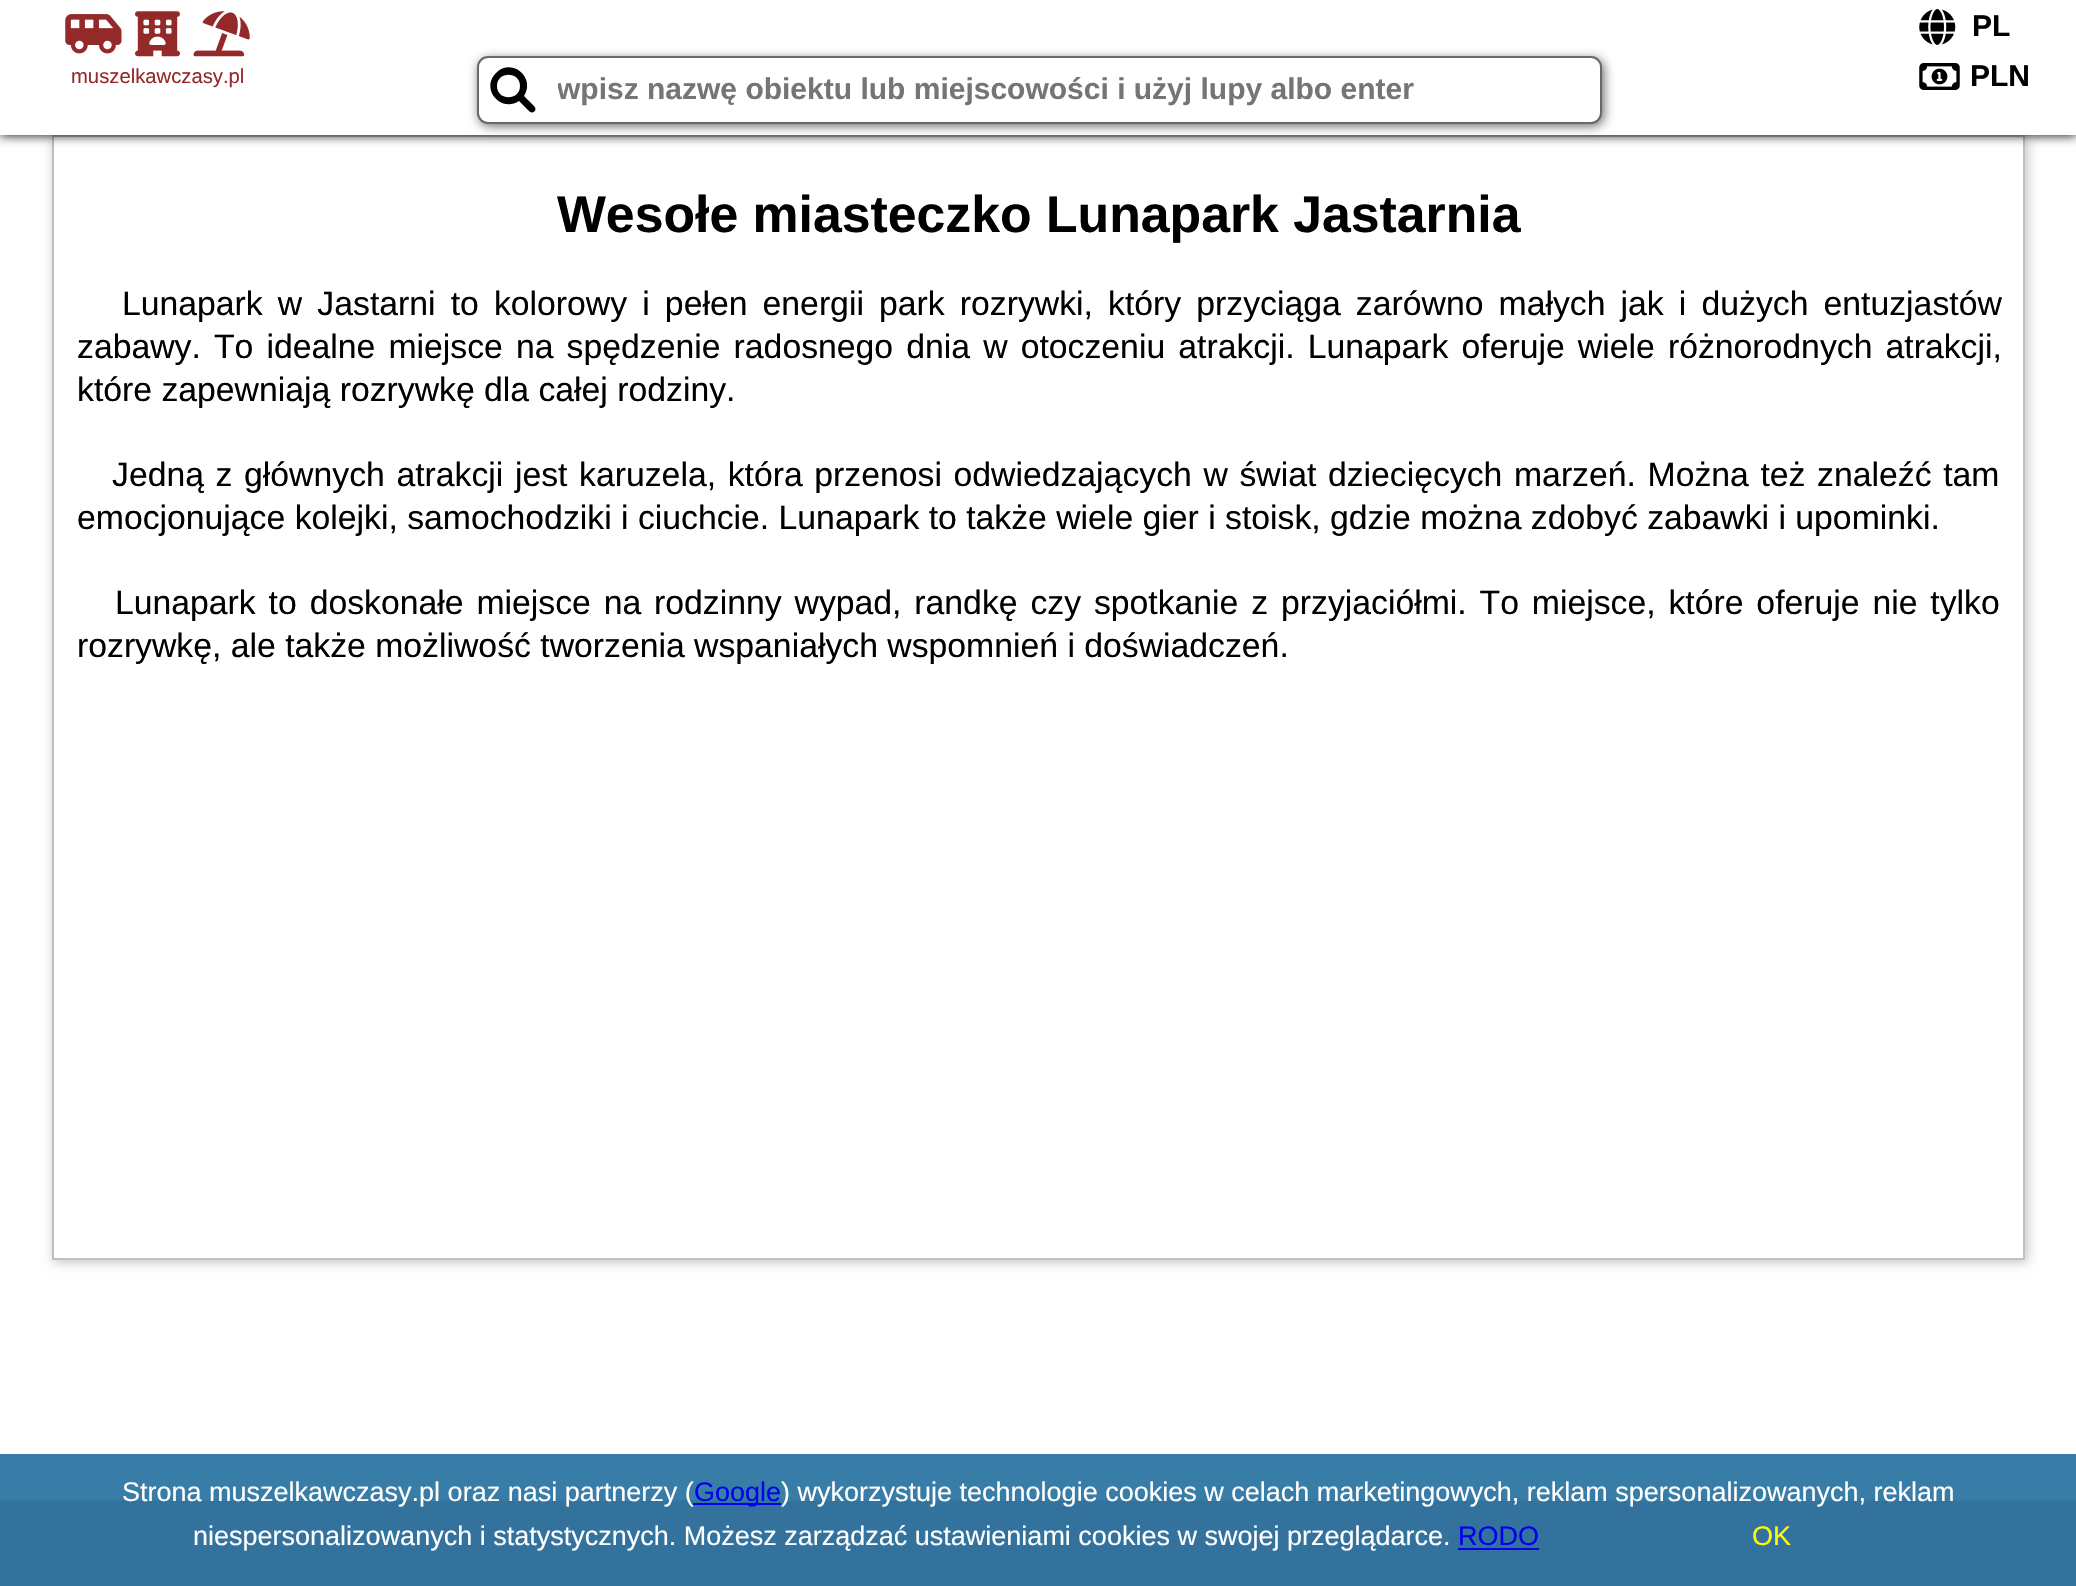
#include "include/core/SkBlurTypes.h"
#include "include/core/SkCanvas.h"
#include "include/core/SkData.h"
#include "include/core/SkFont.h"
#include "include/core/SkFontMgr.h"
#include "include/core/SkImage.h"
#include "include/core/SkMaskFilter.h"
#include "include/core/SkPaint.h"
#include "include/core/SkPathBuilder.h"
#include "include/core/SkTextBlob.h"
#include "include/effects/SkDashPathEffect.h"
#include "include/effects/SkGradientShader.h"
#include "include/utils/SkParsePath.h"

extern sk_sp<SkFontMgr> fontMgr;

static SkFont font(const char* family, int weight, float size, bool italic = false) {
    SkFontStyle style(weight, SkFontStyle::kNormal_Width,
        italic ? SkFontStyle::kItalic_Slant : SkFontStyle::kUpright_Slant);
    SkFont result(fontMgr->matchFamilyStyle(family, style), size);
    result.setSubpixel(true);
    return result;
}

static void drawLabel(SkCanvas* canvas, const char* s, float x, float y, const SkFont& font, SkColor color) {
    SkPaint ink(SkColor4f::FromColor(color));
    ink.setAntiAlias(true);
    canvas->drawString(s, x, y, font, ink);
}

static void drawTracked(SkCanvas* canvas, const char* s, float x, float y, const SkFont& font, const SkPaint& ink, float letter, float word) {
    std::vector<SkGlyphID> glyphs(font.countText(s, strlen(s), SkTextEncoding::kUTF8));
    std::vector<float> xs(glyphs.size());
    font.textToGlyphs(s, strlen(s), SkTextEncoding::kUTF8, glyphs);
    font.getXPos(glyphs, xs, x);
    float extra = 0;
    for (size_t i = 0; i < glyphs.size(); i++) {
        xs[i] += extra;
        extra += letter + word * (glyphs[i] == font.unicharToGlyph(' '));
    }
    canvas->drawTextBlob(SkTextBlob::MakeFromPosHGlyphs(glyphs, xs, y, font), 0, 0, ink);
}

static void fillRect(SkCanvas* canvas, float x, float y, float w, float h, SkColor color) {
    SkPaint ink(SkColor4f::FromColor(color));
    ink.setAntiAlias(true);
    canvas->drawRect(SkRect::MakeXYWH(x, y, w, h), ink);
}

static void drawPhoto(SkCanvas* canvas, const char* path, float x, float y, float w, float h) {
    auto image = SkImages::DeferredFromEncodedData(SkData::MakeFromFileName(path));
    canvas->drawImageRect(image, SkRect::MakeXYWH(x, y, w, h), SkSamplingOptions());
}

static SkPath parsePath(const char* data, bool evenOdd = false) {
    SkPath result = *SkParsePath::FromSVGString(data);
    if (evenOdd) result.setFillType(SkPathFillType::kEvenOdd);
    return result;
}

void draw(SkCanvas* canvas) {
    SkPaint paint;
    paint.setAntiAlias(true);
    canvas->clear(0xFFFFFFFF);
    fillRect(canvas, 0, 1454, 2076, 47, 0xFF387DA7);
    canvas->save();
    canvas->clipPath(parsePath("M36 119H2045V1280H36ZM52 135H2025V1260H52Z", true), true);
    paint.setColor(0xFFC0C0C0);
    paint.setMaskFilter(SkMaskFilter::MakeBlur(kNormal_SkBlurStyle, 5.5f));
    canvas->drawRect(SkRect::MakeXYWH(54, 137, 1973, 1125), paint);
    paint.setMaskFilter(nullptr);
    canvas->restore();
    paint.setStroke(true);
    paint.setStrokeWidth(2);
    canvas->drawRect(SkRect::MakeXYWH(53, 136, 1971, 1123), paint);
    paint.setStroke(false);
    paint.setColor(0xFF000000);
    paint.setMaskFilter(SkMaskFilter::MakeBlur(kNormal_SkBlurStyle, 5.5f));
    canvas->drawRect(SkRect::MakeXYWH(0, 0, 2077, 135), paint);
    paint.setMaskFilter(nullptr);
    fillRect(canvas, 0, 0, 2076, 135, 0xFFFFFFFF);
    drawPhoto(canvas, "assets/img1.png", 1919, 9, 37, 36);
    SkFont font1 = font("Liberation Sans", 700, 30);
    drawLabel(canvas, "PL", 1972, 36, font1, 0xFF000000);
    drawPhoto(canvas, "assets/img2.png", 65, 14, 57, 40);
    drawPhoto(canvas, "assets/img3.png", 135, 11, 45, 46);
    drawPhoto(canvas, "assets/img4.png", 193, 11, 57, 46);
    SkFont font2 = font("Liberation Sans", 400, 20.25f);
    drawLabel(canvas, "muszelkawczasy.pl", 71, 83, font2, 0xFF942929);
    paint.setColor(0xFF676868);
    paint.setMaskFilter(SkMaskFilter::MakeBlur(kNormal_SkBlurStyle, 5.5f));
    canvas->drawRoundRect(SkRect::MakeXYWH(479, 59, 1125, 67), 11, 11, paint);
    paint.setMaskFilter(nullptr);
    paint.setColor(0xFFFFFFFF);
    canvas->drawRoundRect(SkRect::MakeXYWH(478, 57, 1123, 66), 10, 10, paint);
    paint.setStroke(true);
    paint.setColor(0xFF676868);
    canvas->drawRoundRect(SkRect::MakeXYWH(478, 57, 1123, 66), 10, 10, paint);
    paint.setStroke(false);
    paint.setColor(0xFF000000);
    canvas->drawPath(parsePath("M534 106L524 96C536 78 512 57 496 73C480 89 501 113 519 101L529 111C533 115 538 110 534 106ZM497 86C497 71 520 71 520 86C520 101 497 101 497 86Z"), paint);
    canvas->save();
    canvas->clipRect(SkRect::MakeXYWH(558, 72, 977, 34));
    drawLabel(canvas, "wpisz nazwę obiektu lub miejscowości i użyj lupy albo enter", 557, 99, font1, 0xFF757575);
    canvas->restore();
    drawPhoto(canvas, "assets/img5.png", 1919, 63, 41, 27);
    drawLabel(canvas, "PLN", 1970, 86, font1, 0xFF000000);
    SkFont font3 = font("Liberation Sans", 700, 51.75f);
    drawLabel(canvas, "Wesołe miasteczko Lunapark Jastarnia", 557, 232, font3, 0xFF000000);
    SkFont font4 = font("Liberation Sans", 400, 33.75f);
    drawTracked(canvas, "Lunapark w Jastarni to kolorowy i pełen energii park rozrywki, który przyciąga zarówno małych jak i dużych entuzjastów", 122, 315, font4, paint, 0, 5.75f);
    drawTracked(canvas, "zabawy. To idealne miejsce na spędzenie radosnego dnia w otoczeniu atrakcji. Lunapark oferuje wiele różnorodnych atrakcji,", 77, 358, font4, paint, 0, 3.75f);
    drawLabel(canvas, "które zapewniają rozrywkę dla całej rodziny.", 77, 401, font4, 0xFF000000);
    drawTracked(canvas, "Jedną z głównych atrakcji jest karuzela, która przenosi odwiedzających w świat dziecięcych marzeń. Można też znaleźć tam", 112, 486, font4, paint, 0, 2.25f);
    drawLabel(canvas, "emocjonujące kolejki, samochodziki i ciuchcie. Lunapark to także wiele gier i stoisk, gdzie można zdobyć zabawki i upominki.", 77, 529, font4, 0xFF000000);
    drawTracked(canvas, "Lunapark to doskonałe miejsce na rodzinny wypad, randkę czy spotkanie z przyjaciółmi. To miejsce, które oferuje nie tylko", 115, 614, font4, paint, 0, 3.5f);
    drawLabel(canvas, "rozrywkę, ale także możliwość tworzenia wspaniałych wspomnień i doświadczeń.", 77, 657, font4, 0xFF000000);
    paint.setColor(0xFF32729C);
    paint.setMaskFilter(SkMaskFilter::MakeBlur(kNormal_SkBlurStyle, 2));
    canvas->drawRect(SkRect::MakeXYWH(0, 1501, 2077, 85), paint);
    paint.setMaskFilter(nullptr);
    fillRect(canvas, 0, 1501, 2076, 85, 0xFF32729C);
    SkFont font5 = font("Liberation Sans", 400, 27);
    drawLabel(canvas, "Strona muszelkawczasy.pl oraz nasi partnerzy (", 122, 1501, font5, 0xFFFFFFFF);
    fillRect(canvas, 693, 1503, 88, 2, 0xFF0000EE);
    drawLabel(canvas, "Google", 694, 1501, font5, 0xFF0000EE);
    drawLabel(canvas, ") wykorzystuje technologie cookies w celach marketingowych, reklam spersonalizowanych, reklam", 781, 1501, font5, 0xFFFFFFFF);
    drawLabel(canvas, "niespersonalizowanych i statystycznych. Możesz zarządzać ustawieniami cookies w swojej przeglądarce.", 193, 1545, font5, 0xFFFFFFFF);
    drawLabel(canvas, "RODO", 1458, 1545, font5, 0xFF0000EE);
    fillRect(canvas, 1458, 1548, 81, 2, 0xFF0000EE);
    drawLabel(canvas, "OK", 1752, 1545, font5, 0xFFFFFF00);
}
